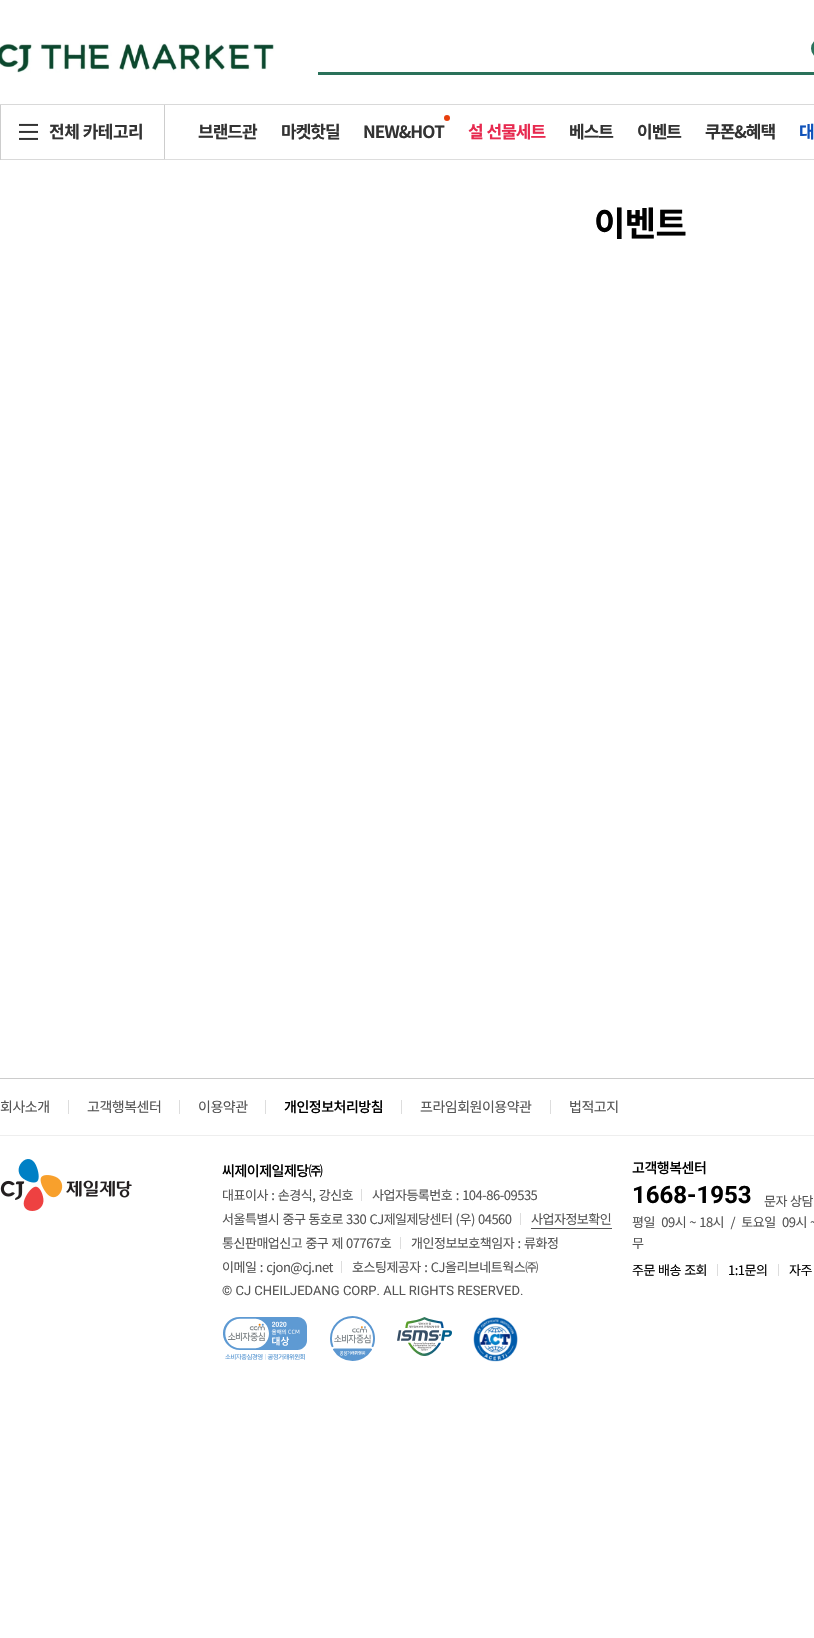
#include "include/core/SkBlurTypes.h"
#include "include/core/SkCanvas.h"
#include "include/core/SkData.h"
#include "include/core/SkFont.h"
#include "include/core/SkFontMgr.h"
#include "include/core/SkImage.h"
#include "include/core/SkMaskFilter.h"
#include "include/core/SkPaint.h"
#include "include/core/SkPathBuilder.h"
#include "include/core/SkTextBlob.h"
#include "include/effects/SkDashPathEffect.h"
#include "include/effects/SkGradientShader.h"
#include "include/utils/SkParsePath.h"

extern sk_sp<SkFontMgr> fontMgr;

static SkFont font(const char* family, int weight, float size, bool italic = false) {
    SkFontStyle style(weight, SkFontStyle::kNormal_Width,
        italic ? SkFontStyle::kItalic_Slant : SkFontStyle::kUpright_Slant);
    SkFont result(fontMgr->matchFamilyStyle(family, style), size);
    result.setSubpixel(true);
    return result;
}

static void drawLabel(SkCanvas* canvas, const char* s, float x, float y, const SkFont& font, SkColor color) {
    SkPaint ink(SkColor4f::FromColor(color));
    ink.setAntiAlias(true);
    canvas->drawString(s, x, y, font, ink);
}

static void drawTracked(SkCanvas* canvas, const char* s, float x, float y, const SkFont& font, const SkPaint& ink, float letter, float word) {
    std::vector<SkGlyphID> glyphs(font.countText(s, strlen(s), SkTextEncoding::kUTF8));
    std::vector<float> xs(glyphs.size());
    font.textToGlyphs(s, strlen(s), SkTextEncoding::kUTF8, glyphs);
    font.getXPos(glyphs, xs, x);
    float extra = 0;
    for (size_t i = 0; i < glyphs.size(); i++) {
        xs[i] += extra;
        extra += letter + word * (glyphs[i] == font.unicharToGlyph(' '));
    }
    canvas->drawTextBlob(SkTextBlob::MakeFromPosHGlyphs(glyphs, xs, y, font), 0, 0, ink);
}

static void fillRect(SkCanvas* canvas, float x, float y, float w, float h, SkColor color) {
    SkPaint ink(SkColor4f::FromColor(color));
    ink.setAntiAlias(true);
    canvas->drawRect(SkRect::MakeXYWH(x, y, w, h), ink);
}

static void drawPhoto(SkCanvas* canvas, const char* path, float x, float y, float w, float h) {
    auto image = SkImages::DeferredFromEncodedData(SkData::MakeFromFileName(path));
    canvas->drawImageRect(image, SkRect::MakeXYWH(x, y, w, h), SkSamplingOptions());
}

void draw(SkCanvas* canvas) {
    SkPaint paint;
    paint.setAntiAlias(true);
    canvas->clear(0xFFFFFFFF);
    fillRect(canvas, 0, 104, 814, 1, 0xFFD9D9D9);
    drawPhoto(canvas, "assets/img1.png", 0, 43, 275, 30);
    paint.setStroke(true);
    paint.setStrokeWidth(3);
    paint.setColor(0xFF2A715A);
    canvas->drawCircle(821.5f, 48.5f, 9, paint);
    fillRect(canvas, 318, 72, 496, 3, 0xFF2A715A);
    fillRect(canvas, 165, 159, 649, 1, 0xFFDDDDDD);
    fillRect(canvas, 164, 105, 1, 55, 0xFFCDCDCD);
    fillRect(canvas, 0, 159, 165, 1, 0xFFD9D9D9);
    fillRect(canvas, 0, 105, 1, 55, 0xFFCDCDCD);
    drawPhoto(canvas, "assets/img2.png", 19, 123, 19, 17);
    SkFont font1 = font("Noto Sans KR", 700, 17);
    paint.setStroke(false);
    paint.setColor(0xFF333333);
    drawTracked(canvas, "전체 카테고리", 49, 138, font1, paint, -0.5f, 0);
    drawTracked(canvas, "브랜드관", 198, 138, font1, paint, -1, 0);
    drawTracked(canvas, "마켓핫딜", 281, 138, font1, paint, -1, 0);
    paint.setColor(0xFFE83E0C);
    canvas->drawCircle(447, 118, 3, paint);
    paint.setColor(0xFF333333);
    drawTracked(canvas, "NEW&HOT", 363, 138, font1, paint, -1, 0);
    paint.setColor(0xFFE72A50);
    drawTracked(canvas, "설 선물세트", 468, 138, font1, paint, -1, 1);
    paint.setColor(0xFF333333);
    drawTracked(canvas, "베스트", 569, 138, font1, paint, -1, 0);
    drawTracked(canvas, "이벤트", 637, 138, font1, paint, -1, 0);
    drawTracked(canvas, "쿠폰&혜택", 705, 138, font1, paint, -1, 0);
    paint.setColor(0xFF0F52BA);
    drawTracked(canvas, "대", 799, 138, font1, paint, -1, 0);
    SkFont font2 = font("Noto Sans KR", 700, 34);
    paint.setColor(0xFF000000);
    drawTracked(canvas, "이벤트", 594, 236, font2, paint, -0.5f, 0);
    fillRect(canvas, 0, 1078, 814, 1, 0xFFCCCCCC);
    fillRect(canvas, 0, 1135, 814, 1, 0xFFEEEEEE);
    SkFont font3 = font("Noto Sans KR", 400, 14);
    paint.setColor(0xFF555555);
    drawTracked(canvas, "회사소개", 0, 1112, font3, paint, -0.5f, 0);
    fillRect(canvas, 68, 1100, 1, 14, 0xFFDDDDDD);
    drawTracked(canvas, "고객행복센터", 87, 1112, font3, paint, -0.5f, 0);
    fillRect(canvas, 179, 1100, 1, 14, 0xFFDDDDDD);
    drawTracked(canvas, "이용약관", 198, 1112, font3, paint, -0.5f, 0);
    fillRect(canvas, 265, 1100, 1, 14, 0xFFDDDDDD);
    SkFont font4 = font("Noto Sans KR", 500, 14);
    paint.setColor(0xFF000000);
    drawTracked(canvas, "개인정보처리방침", 284, 1112, font4, paint, -0.5f, 0);
    fillRect(canvas, 401, 1100, 1, 14, 0xFFDDDDDD);
    paint.setColor(0xFF555555);
    drawTracked(canvas, "프라임회원이용약관", 420, 1112, font3, paint, -0.5f, 0);
    fillRect(canvas, 550, 1100, 1, 14, 0xFFDDDDDD);
    drawTracked(canvas, "법적고지", 569, 1112, font3, paint, -0.5f, 0);
    drawPhoto(canvas, "assets/img3.png", 0, 1159, 132, 52);
    paint.setColor(0xFF000000);
    drawTracked(canvas, "씨제이제일제당㈜", 222, 1176, font4, paint, -0.5f, 0);
    SkFont font5 = font("Noto Sans KR", 400, 13);
    paint.setColor(0xFF555555);
    drawTracked(canvas, "대표이사 : 손경식, 강신호", 222, 1200, font5, paint, -0.5f, 1);
    fillRect(canvas, 361, 1189, 1, 12, 0xFFDDDDDD);
    drawTracked(canvas, "사업자등록번호 : 104-86-09535", 372, 1200, font5, paint, -0.5f, 1);
    drawTracked(canvas, "서울특별시 중구 동호로 330 CJ제일제당센터 (우) 04560", 222, 1224, font5, paint, -0.5f, 0.75f);
    fillRect(canvas, 520, 1213, 1, 12, 0xFFDDDDDD);
    drawTracked(canvas, "사업자정보확인", 531, 1224, font5, paint, -0.5f, 0);
    fillRect(canvas, 531, 1228, 81, 1, 0xFF555555);
    drawTracked(canvas, "통신판매업신고 중구 제 07767호", 222, 1248, font5, paint, -0.5f, 0.75f);
    fillRect(canvas, 400, 1237, 1, 12, 0xFFDDDDDD);
    drawTracked(canvas, "개인정보보호책임자 : 류화정", 411, 1248, font5, paint, -0.5f, 1);
    drawTracked(canvas, "이메일 : cjon@cj.net", 222, 1272, font5, paint, -0.5f, 1);
    fillRect(canvas, 341, 1261, 1, 12, 0xFFDDDDDD);
    drawTracked(canvas, "호스팅제공자 : CJ올리브네트웍스㈜", 352, 1272, font5, paint, -0.5f, 1);
    SkFont font6 = font("Roboto", 400, 13);
    drawLabel(canvas, "© CJ CHEILJEDANG CORP. ALL RIGHTS RESERVED.", 222, 1295, font6, 0xFF555555);
    drawPhoto(canvas, "assets/img4.png", 223, 1317, 84, 43);
    drawPhoto(canvas, "assets/img5.png", 330, 1316, 45, 45);
    drawPhoto(canvas, "assets/img6.png", 397, 1317, 55, 39);
    drawPhoto(canvas, "assets/img7.png", 473, 1317, 45, 45);
    paint.setColor(0xFF000000);
    drawTracked(canvas, "고객행복센터", 632, 1173, font4, paint, -0.5f, 0);
    SkFont font7 = font("Roboto", 700, 24);
    drawLabel(canvas, "1668-1953", 632, 1203, font7, 0xFF000000);
    paint.setColor(0xFF555555);
    drawTracked(canvas, "문자 상담", 764, 1206, font5, paint, -0.5f, 0.75f);
    drawTracked(canvas, "평일  09시 ~ 18시  /  토요일  09시 ~", 632, 1227, font5, paint, -0.5f, 0.75f);
    drawTracked(canvas, "무", 632, 1248, font5, paint, -0.5f, 0);
    paint.setColor(0xFF000000);
    drawTracked(canvas, "주문 배송 조회", 632, 1275, font5, paint, -0.5f, 0.75f);
    fillRect(canvas, 717, 1264, 1, 12, 0xFFDDDDDD);
    drawTracked(canvas, "1:1문의", 728, 1275, font5, paint, -0.5f, 0);
    fillRect(canvas, 778, 1264, 1, 12, 0xFFDDDDDD);
    drawTracked(canvas, "자주", 789, 1275, font5, paint, -0.5f, 0.75f);
}
